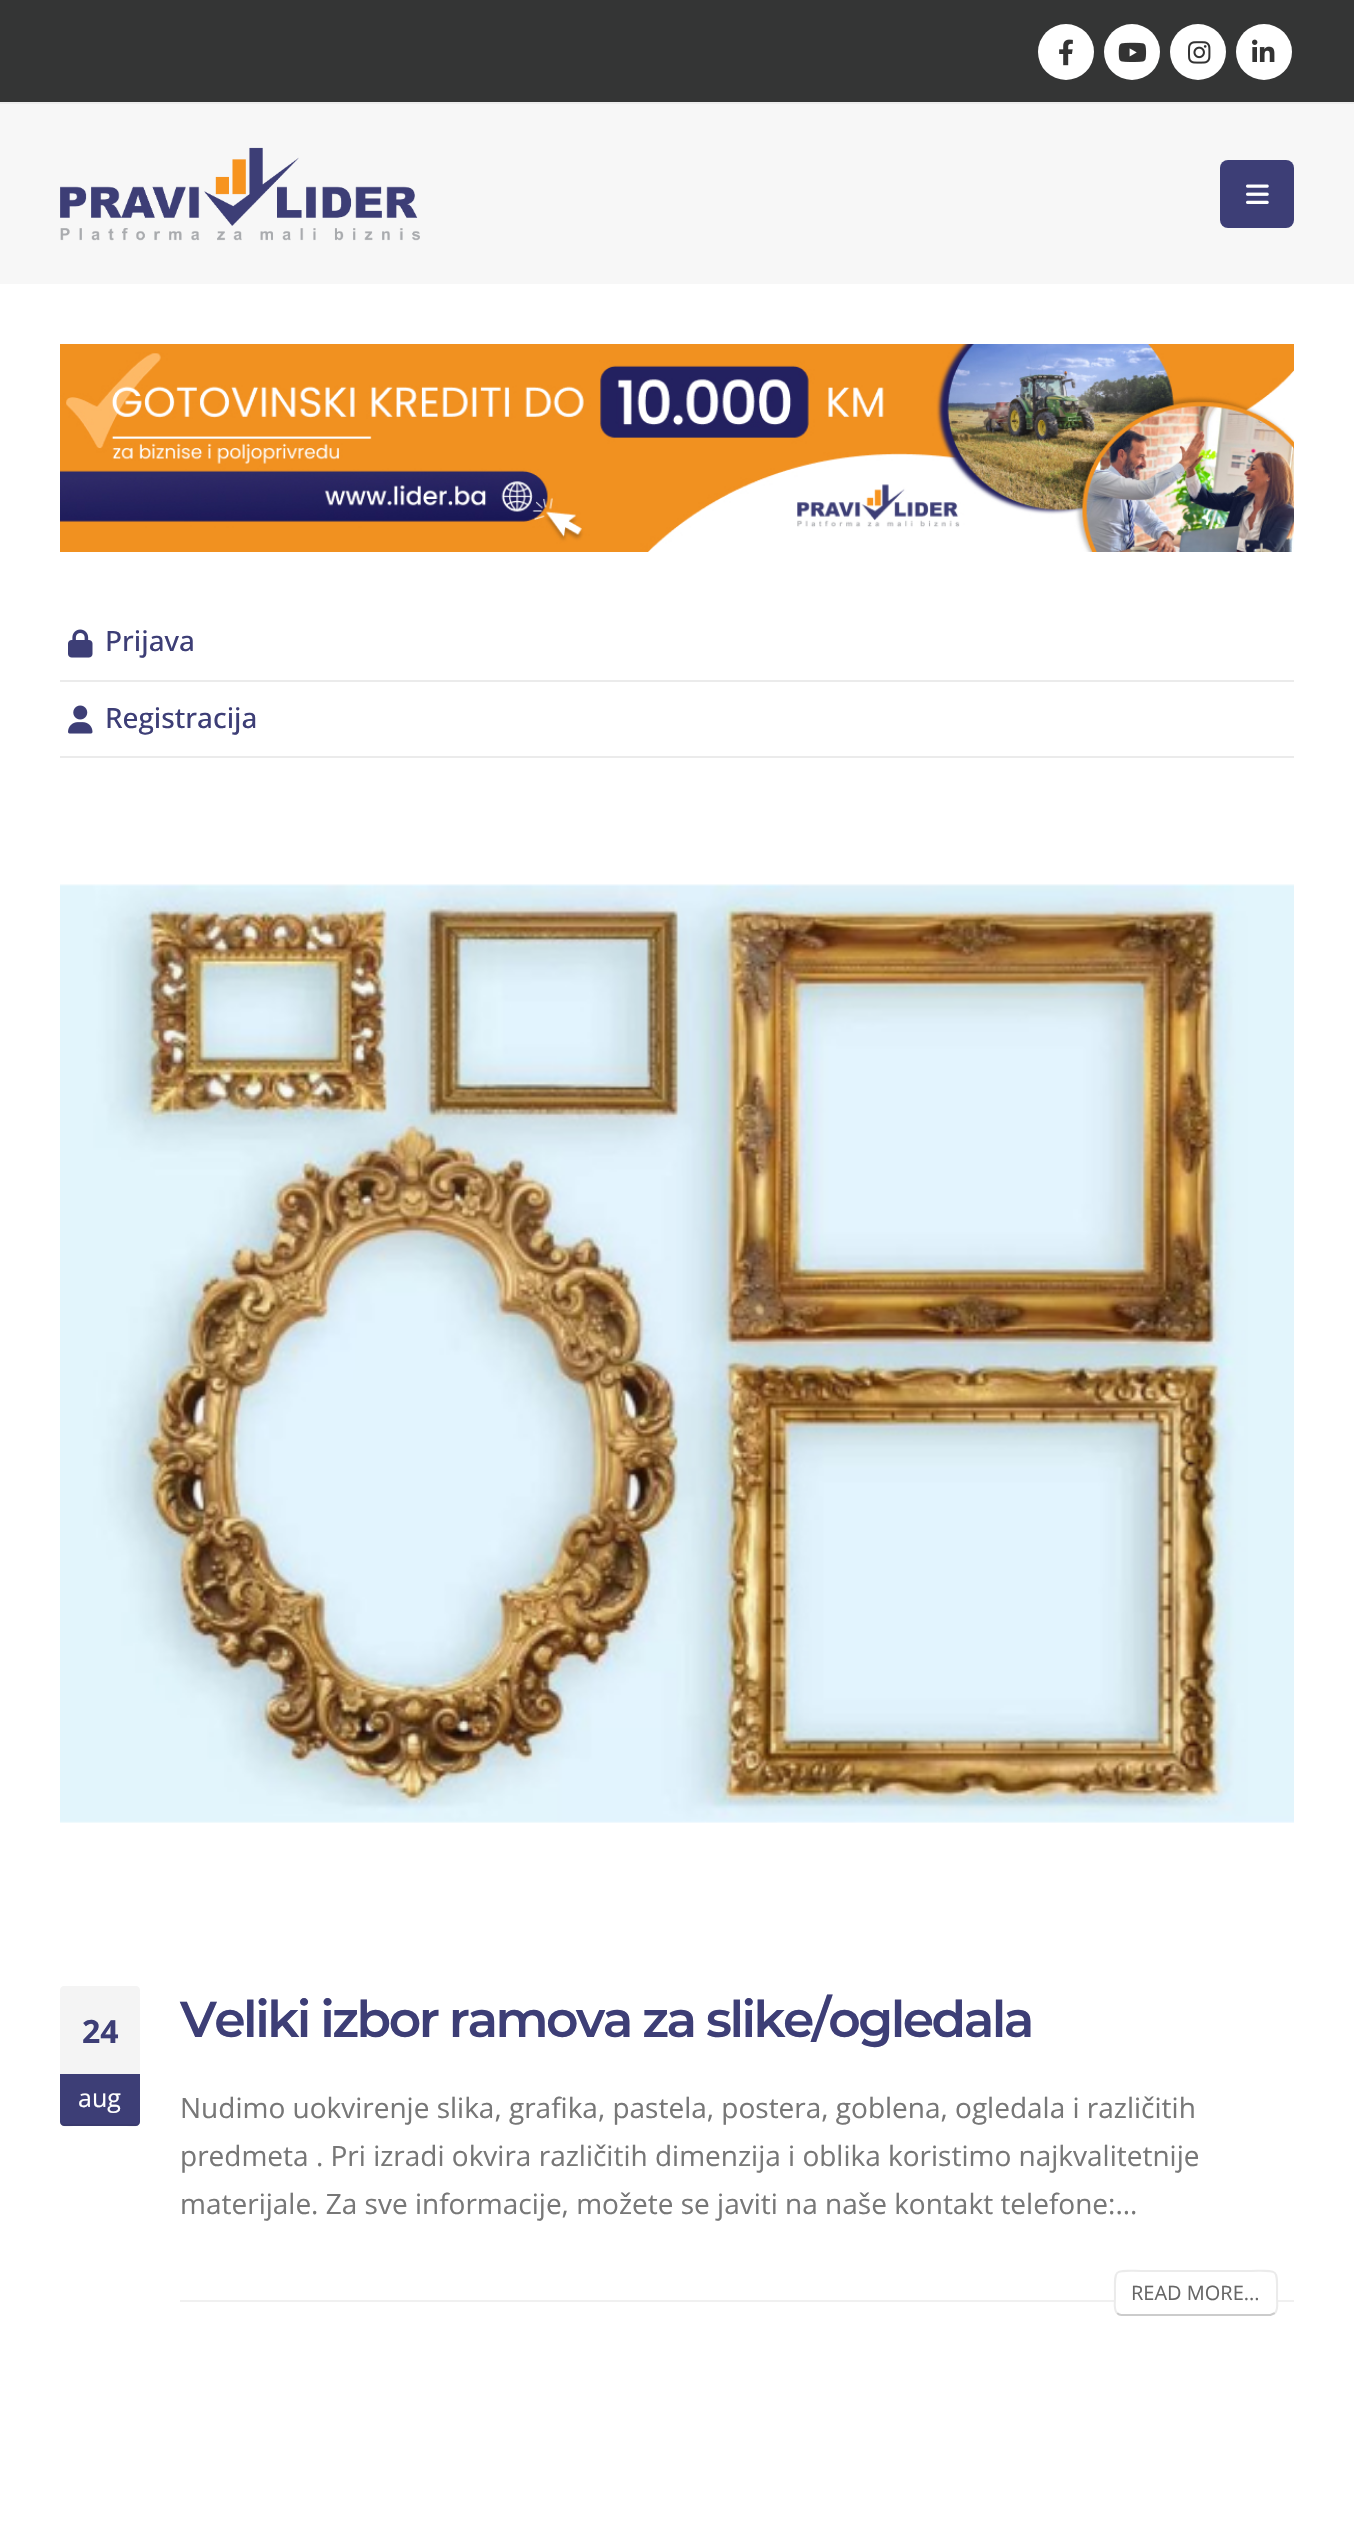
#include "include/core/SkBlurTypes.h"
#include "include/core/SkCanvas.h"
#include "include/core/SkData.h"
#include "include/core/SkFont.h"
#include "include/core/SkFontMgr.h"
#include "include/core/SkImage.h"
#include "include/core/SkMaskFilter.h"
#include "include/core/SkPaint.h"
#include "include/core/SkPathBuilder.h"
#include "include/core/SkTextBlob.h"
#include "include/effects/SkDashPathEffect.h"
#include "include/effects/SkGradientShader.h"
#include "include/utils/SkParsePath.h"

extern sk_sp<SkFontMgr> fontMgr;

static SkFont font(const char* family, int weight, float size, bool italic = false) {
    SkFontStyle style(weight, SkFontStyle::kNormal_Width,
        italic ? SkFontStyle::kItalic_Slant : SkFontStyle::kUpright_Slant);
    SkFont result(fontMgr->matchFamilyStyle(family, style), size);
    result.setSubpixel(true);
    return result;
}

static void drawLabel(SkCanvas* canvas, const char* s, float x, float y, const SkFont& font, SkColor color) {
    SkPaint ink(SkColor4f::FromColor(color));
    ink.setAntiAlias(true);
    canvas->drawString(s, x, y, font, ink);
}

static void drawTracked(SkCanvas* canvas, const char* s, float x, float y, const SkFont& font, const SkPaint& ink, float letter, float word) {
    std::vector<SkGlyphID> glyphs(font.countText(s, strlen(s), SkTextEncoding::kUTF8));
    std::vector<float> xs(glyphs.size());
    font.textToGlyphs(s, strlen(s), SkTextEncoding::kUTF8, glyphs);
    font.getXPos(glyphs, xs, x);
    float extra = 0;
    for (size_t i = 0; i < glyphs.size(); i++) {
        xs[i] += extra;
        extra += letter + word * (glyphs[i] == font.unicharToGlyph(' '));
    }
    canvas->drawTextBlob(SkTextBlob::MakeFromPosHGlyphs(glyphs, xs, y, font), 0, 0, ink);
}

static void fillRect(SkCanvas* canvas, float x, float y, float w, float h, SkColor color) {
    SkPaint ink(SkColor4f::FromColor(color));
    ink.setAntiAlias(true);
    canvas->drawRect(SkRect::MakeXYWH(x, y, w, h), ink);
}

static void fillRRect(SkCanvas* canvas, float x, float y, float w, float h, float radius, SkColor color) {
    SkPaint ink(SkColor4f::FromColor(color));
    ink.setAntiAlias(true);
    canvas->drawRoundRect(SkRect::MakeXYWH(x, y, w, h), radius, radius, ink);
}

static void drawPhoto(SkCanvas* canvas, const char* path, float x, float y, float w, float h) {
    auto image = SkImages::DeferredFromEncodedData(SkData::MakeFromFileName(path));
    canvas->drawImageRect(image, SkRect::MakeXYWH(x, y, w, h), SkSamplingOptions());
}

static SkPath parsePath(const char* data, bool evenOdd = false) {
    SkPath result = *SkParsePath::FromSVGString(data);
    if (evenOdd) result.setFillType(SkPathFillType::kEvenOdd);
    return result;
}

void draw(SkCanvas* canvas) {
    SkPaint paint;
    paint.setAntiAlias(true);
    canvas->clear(0xFFFFFFFF);
    fillRect(canvas, 0, 102, 1354, 2, 0xFFEDEDED);
    fillRect(canvas, 0, 0, 1354, 102, 0xFF343535);
    paint.setColor(0xFFFFFFFF);
    canvas->drawCircle(1066, 52, 28, paint);
    drawPhoto(canvas, "assets/img1.png", 1059, 39, 14, 27);
    canvas->drawCircle(1132, 52, 28, paint);
    drawPhoto(canvas, "assets/img2.png", 1118, 42, 29, 20);
    canvas->drawCircle(1198, 52, 28, paint);
    drawPhoto(canvas, "assets/img3.png", 1188, 41, 23, 23);
    canvas->drawCircle(1264, 52, 28, paint);
    drawPhoto(canvas, "assets/img4.png", 1252, 39, 23, 23);
    fillRect(canvas, 0, 104, 1354, 180, 0xFFF7F7F7);
    drawPhoto(canvas, "assets/img5.png", 60, 147, 360, 94);
    fillRRect(canvas, 1220, 160, 74, 68, 8, 0xFF3D3E76);
    drawPhoto(canvas, "assets/img6.png", 1246, 184, 23, 20);
    drawPhoto(canvas, "assets/img7.png", 60, 344, 1234, 208);
    fillRect(canvas, 60, 756, 1234, 2, 0xFFEBEBEB);
    drawPhoto(canvas, "assets/img8.png", 68, 629, 25, 29);
    SkFont font1 = font("Open Sans", 500, 28);
    drawLabel(canvas, "Prijava", 105, 651, font1, 0xFF3D3E76);
    fillRect(canvas, 60, 680, 1234, 2, 0xFFEBEBEB);
    drawPhoto(canvas, "assets/img9.png", 68, 705, 25, 29);
    drawLabel(canvas, "Registracija", 105, 728, font1, 0xFF3D3E76);
    fillRect(canvas, 180, 2300, 1114, 2, 0xFFF0F0F0);
    drawPhoto(canvas, "assets/img10.png", 60, 884, 1234, 939);
    paint.setColor(0xFFF4F4F4);
    canvas->drawPath(parsePath("M64 1986H136C138 1986 140 1988 140 1990V2074H60V1990C60 1988 62 1986 64 1986Z"), paint);
    SkFont font2 = font("Open Sans", 700, 32);
    drawLabel(canvas, "24", 82, 2043, font2, 0xFF3D3E76);
    paint.setColor(0xFF3D3E76);
    canvas->drawPath(parsePath("M60 2074H140V2122C140 2124 138 2126 136 2126H64C62 2126 60 2124 60 2122Z"), paint);
    paint.setColor(0x12000000);
    canvas->drawPath(parsePath("M60 2120C60 2129 68 2126 76 2126H124C132 2126 140 2129 140 2120C140 2122 138 2124 136 2124H64C62 2124 60 2122 60 2120Z"), paint);
    SkFont font3 = font("Open Sans", 400, 25);
    drawLabel(canvas, "aug", 78, 2107, font3, 0xFFFFFFFF);
    SkFont font4 = font("Montserrat", 600, 50.4f);
    paint.setColor(0xFF3D3E76);
    drawTracked(canvas, "Veliki izbor ramova za slike/ogledala", 180, 2037, font4, paint, -2.5f, 0);
    SkFont font5 = font("Open Sans", 400, 28);
    drawLabel(canvas, "Nudimo uokvirenje slika, grafika, pastela, postera, goblena, ogledala i različitih", 180, 2118, font5, 0xFF777777);
    drawLabel(canvas, "predmeta . Pri izradi okvira različitih dimenzija i oblika koristimo najkvalitetnije", 180, 2166, font5, 0xFF777777);
    drawLabel(canvas, "materijale. Za sve informacije, možete se javiti na naše kontakt telefone:...", 180, 2214, font5, 0xFF777777);
    fillRRect(canvas, 1114, 2270, 164, 46, 8, 0xFFFFFFFF);
    paint.setStroke(true);
    paint.setStrokeWidth(2);
    paint.setColor(0xFFCCCCCC);
    canvas->drawPath(parsePath("M1275 2313L1270.5 2315H1121.5C1119.5 2315 1118 2314 1117 2313"), paint);
    paint.setColor(0xFFEBEBEB);
    canvas->drawPath(parsePath("M1117 2313C1113.5 2309.5 1115 2302.5 1115 2298C1115 2266 1111.5 2271 1146.5 2271H1245.5C1280.5 2271 1277 2266 1277 2298C1277 2302.5 1278.5 2309.5 1275 2313"), paint);
    SkFont font6 = font("Open Sans", 400, 20);
    drawLabel(canvas, "READ MORE...", 1131, 2300, font6, 0xFF666666);
}
